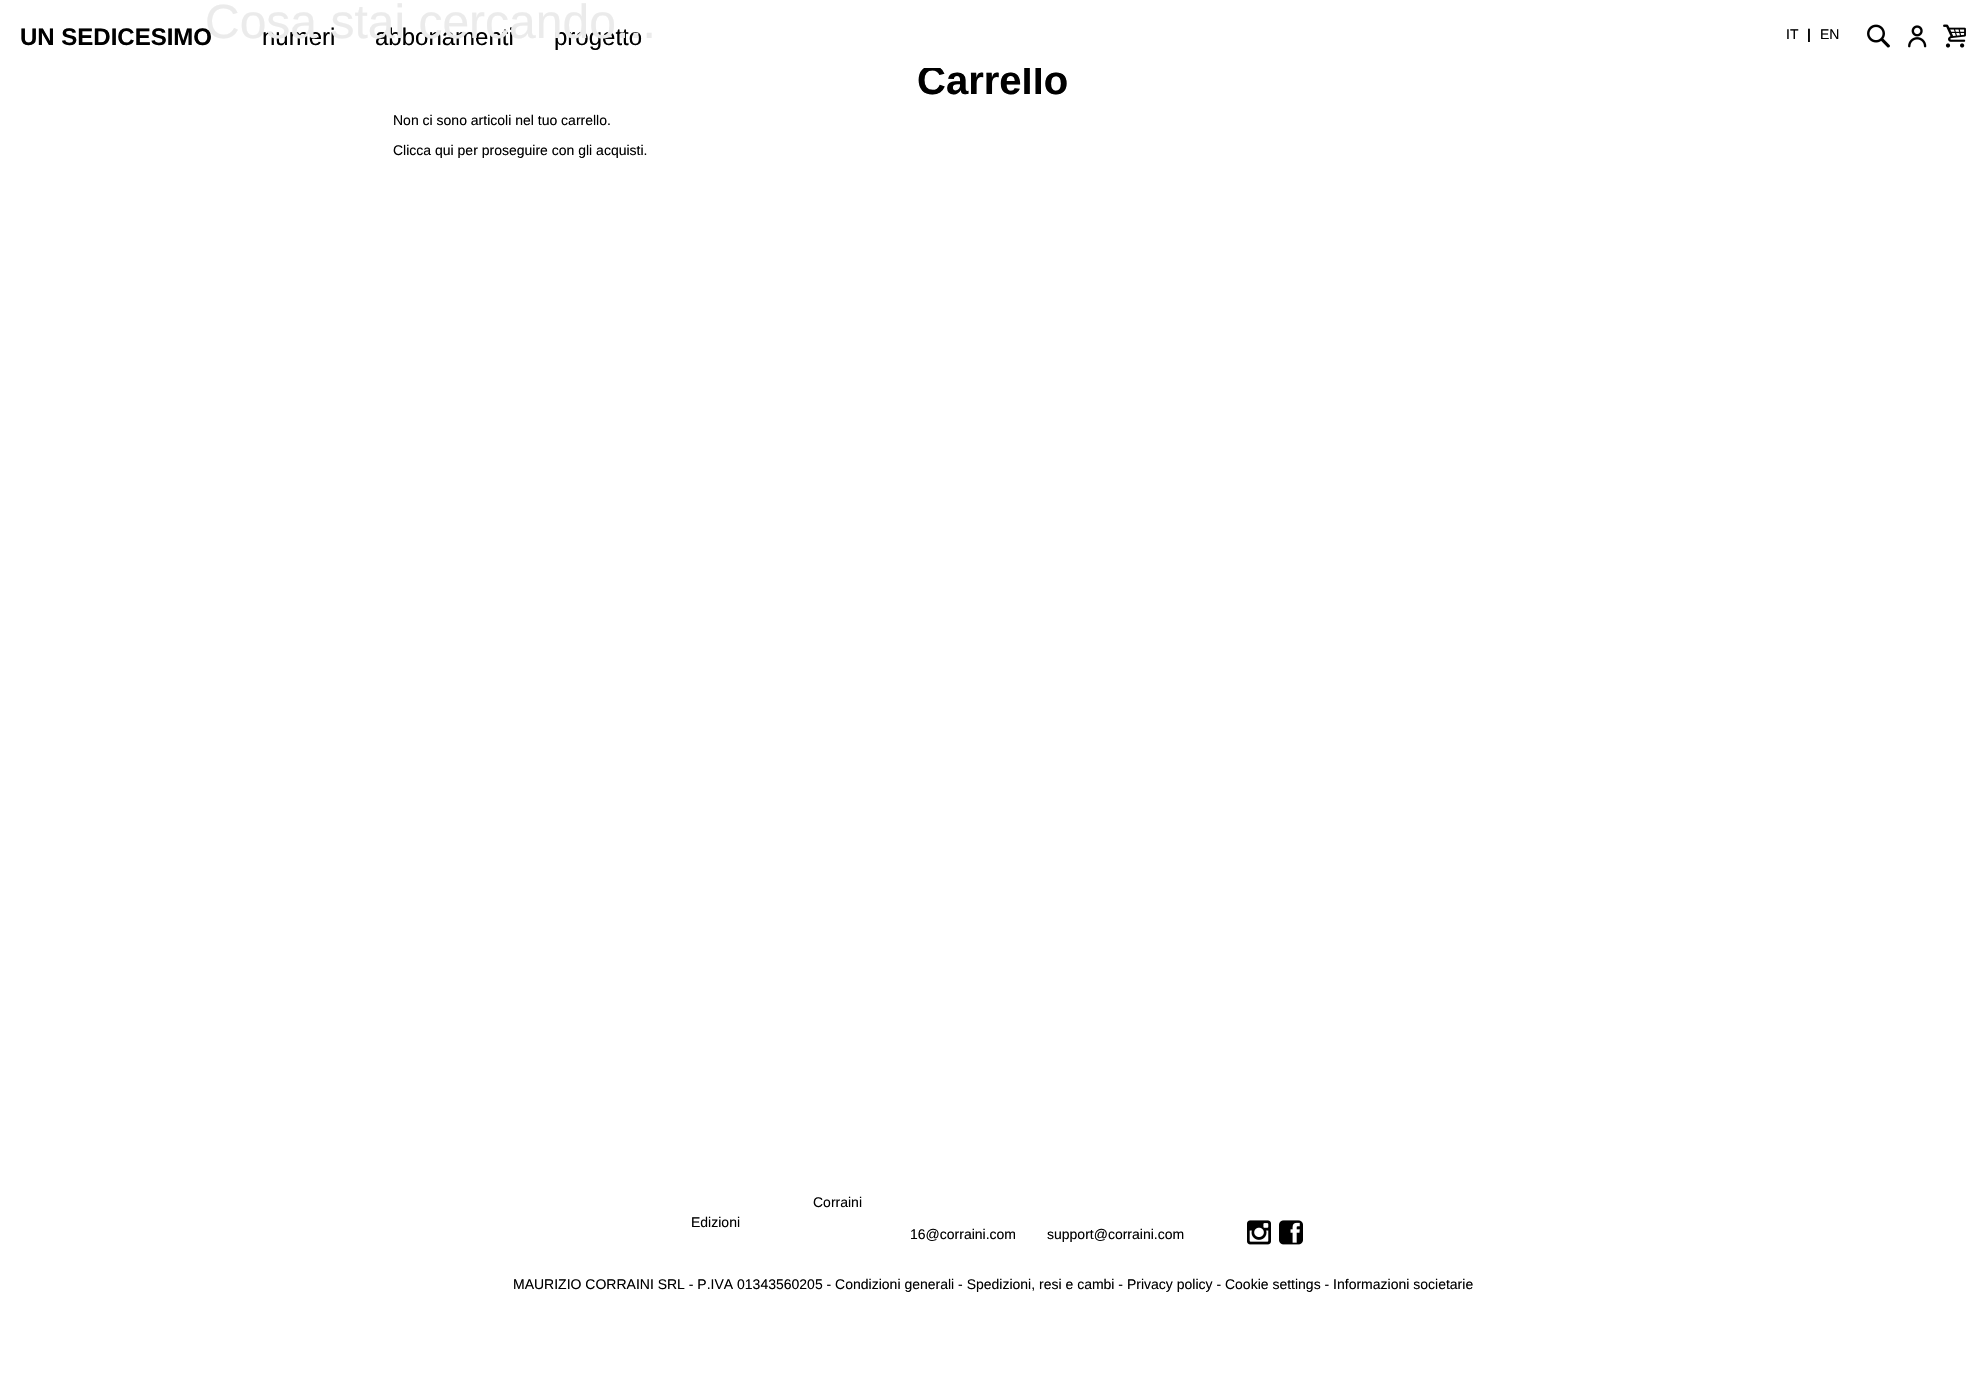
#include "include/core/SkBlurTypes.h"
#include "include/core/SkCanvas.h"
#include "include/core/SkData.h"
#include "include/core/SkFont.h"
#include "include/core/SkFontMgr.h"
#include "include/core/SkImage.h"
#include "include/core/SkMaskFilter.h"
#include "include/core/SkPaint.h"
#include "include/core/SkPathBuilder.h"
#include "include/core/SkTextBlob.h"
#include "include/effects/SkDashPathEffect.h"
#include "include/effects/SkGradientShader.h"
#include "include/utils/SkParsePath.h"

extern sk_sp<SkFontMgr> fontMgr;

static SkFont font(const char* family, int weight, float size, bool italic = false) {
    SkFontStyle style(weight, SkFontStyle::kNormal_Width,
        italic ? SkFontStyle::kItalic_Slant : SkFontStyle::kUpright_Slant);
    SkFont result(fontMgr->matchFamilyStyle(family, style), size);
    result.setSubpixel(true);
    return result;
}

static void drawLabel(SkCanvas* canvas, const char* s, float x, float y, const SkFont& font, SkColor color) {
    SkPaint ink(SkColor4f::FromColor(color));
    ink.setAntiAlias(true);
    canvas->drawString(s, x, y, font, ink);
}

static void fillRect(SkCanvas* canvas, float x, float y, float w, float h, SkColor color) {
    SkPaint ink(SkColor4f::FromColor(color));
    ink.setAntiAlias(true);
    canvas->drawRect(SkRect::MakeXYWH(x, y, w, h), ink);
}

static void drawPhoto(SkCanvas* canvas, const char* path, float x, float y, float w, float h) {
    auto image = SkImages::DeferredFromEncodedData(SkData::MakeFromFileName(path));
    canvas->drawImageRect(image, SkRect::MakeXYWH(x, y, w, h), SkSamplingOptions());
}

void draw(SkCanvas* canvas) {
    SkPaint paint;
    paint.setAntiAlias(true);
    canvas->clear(0xFFFFFFFF);
    SkFont font1 = font("Liberation Sans", 700, 40);
    drawLabel(canvas, "Carrello", 917, 94, font1, 0xFF000000);
    fillRect(canvas, 924, 65, 118, 3, 0xFFFFFFFF);
    SkFont font2 = font("Liberation Sans", 400, 24);
    drawLabel(canvas, "numeri", 262, 45, font2, 0xFF000000);
    drawLabel(canvas, "abbonamenti", 375, 45, font2, 0xFF000000);
    drawLabel(canvas, "progetto", 554, 45, font2, 0xFF000000);
    SkFont font3 = font("Liberation Sans", 400, 48);
    drawLabel(canvas, "Cosa stai cercando...", 205, 38, font3, 0xFFEBEBEB);
    SkFont font4 = font("Liberation Sans", 400, 14);
    drawLabel(canvas, "IT", 1786, 39, font4, 0xFF000000);
    SkFont font5 = font("Liberation Sans", 700, 14);
    drawLabel(canvas, "|", 1807, 39, font5, 0xFF000000);
    drawLabel(canvas, "EN", 1820, 39, font4, 0xFF000000);
    drawPhoto(canvas, "assets/img1.png", 1867, 24, 23, 24);
    drawPhoto(canvas, "assets/img2.png", 1908, 25, 19, 23);
    drawPhoto(canvas, "assets/img3.png", 1943, 24, 23, 24);
    SkFont font6 = font("Liberation Sans", 700, 24);
    drawLabel(canvas, "UN SEDICESIMO", 20, 45, font6, 0xFF000000);
    drawLabel(canvas, "Non ci sono articoli nel tuo carrello.", 393, 125, font4, 0xFF000000);
    drawLabel(canvas, "Clicca qui per proseguire con gli acquisti.", 393, 155, font4, 0xFF000000);
    drawLabel(canvas, "Corraini", 813, 1207, font4, 0xFF000000);
    drawLabel(canvas, "Edizioni", 691, 1227, font4, 0xFF000000);
    drawLabel(canvas, "16@corraini.com", 910, 1239, font4, 0xFF000000);
    drawLabel(canvas, "support@corraini.com", 1047, 1239, font4, 0xFF000000);
    drawPhoto(canvas, "assets/img4.png", 1247, 1220, 24, 25);
    drawPhoto(canvas, "assets/img5.png", 1279, 1220, 24, 25);
    drawLabel(canvas, "MAURIZIO CORRAINI SRL - P.IVA 01343560205 - Condizioni generali - Spedizioni, resi e cambi - Privacy policy - Cookie settings - Informazioni societarie", 513, 1289, font4, 0xFF000000);
}
